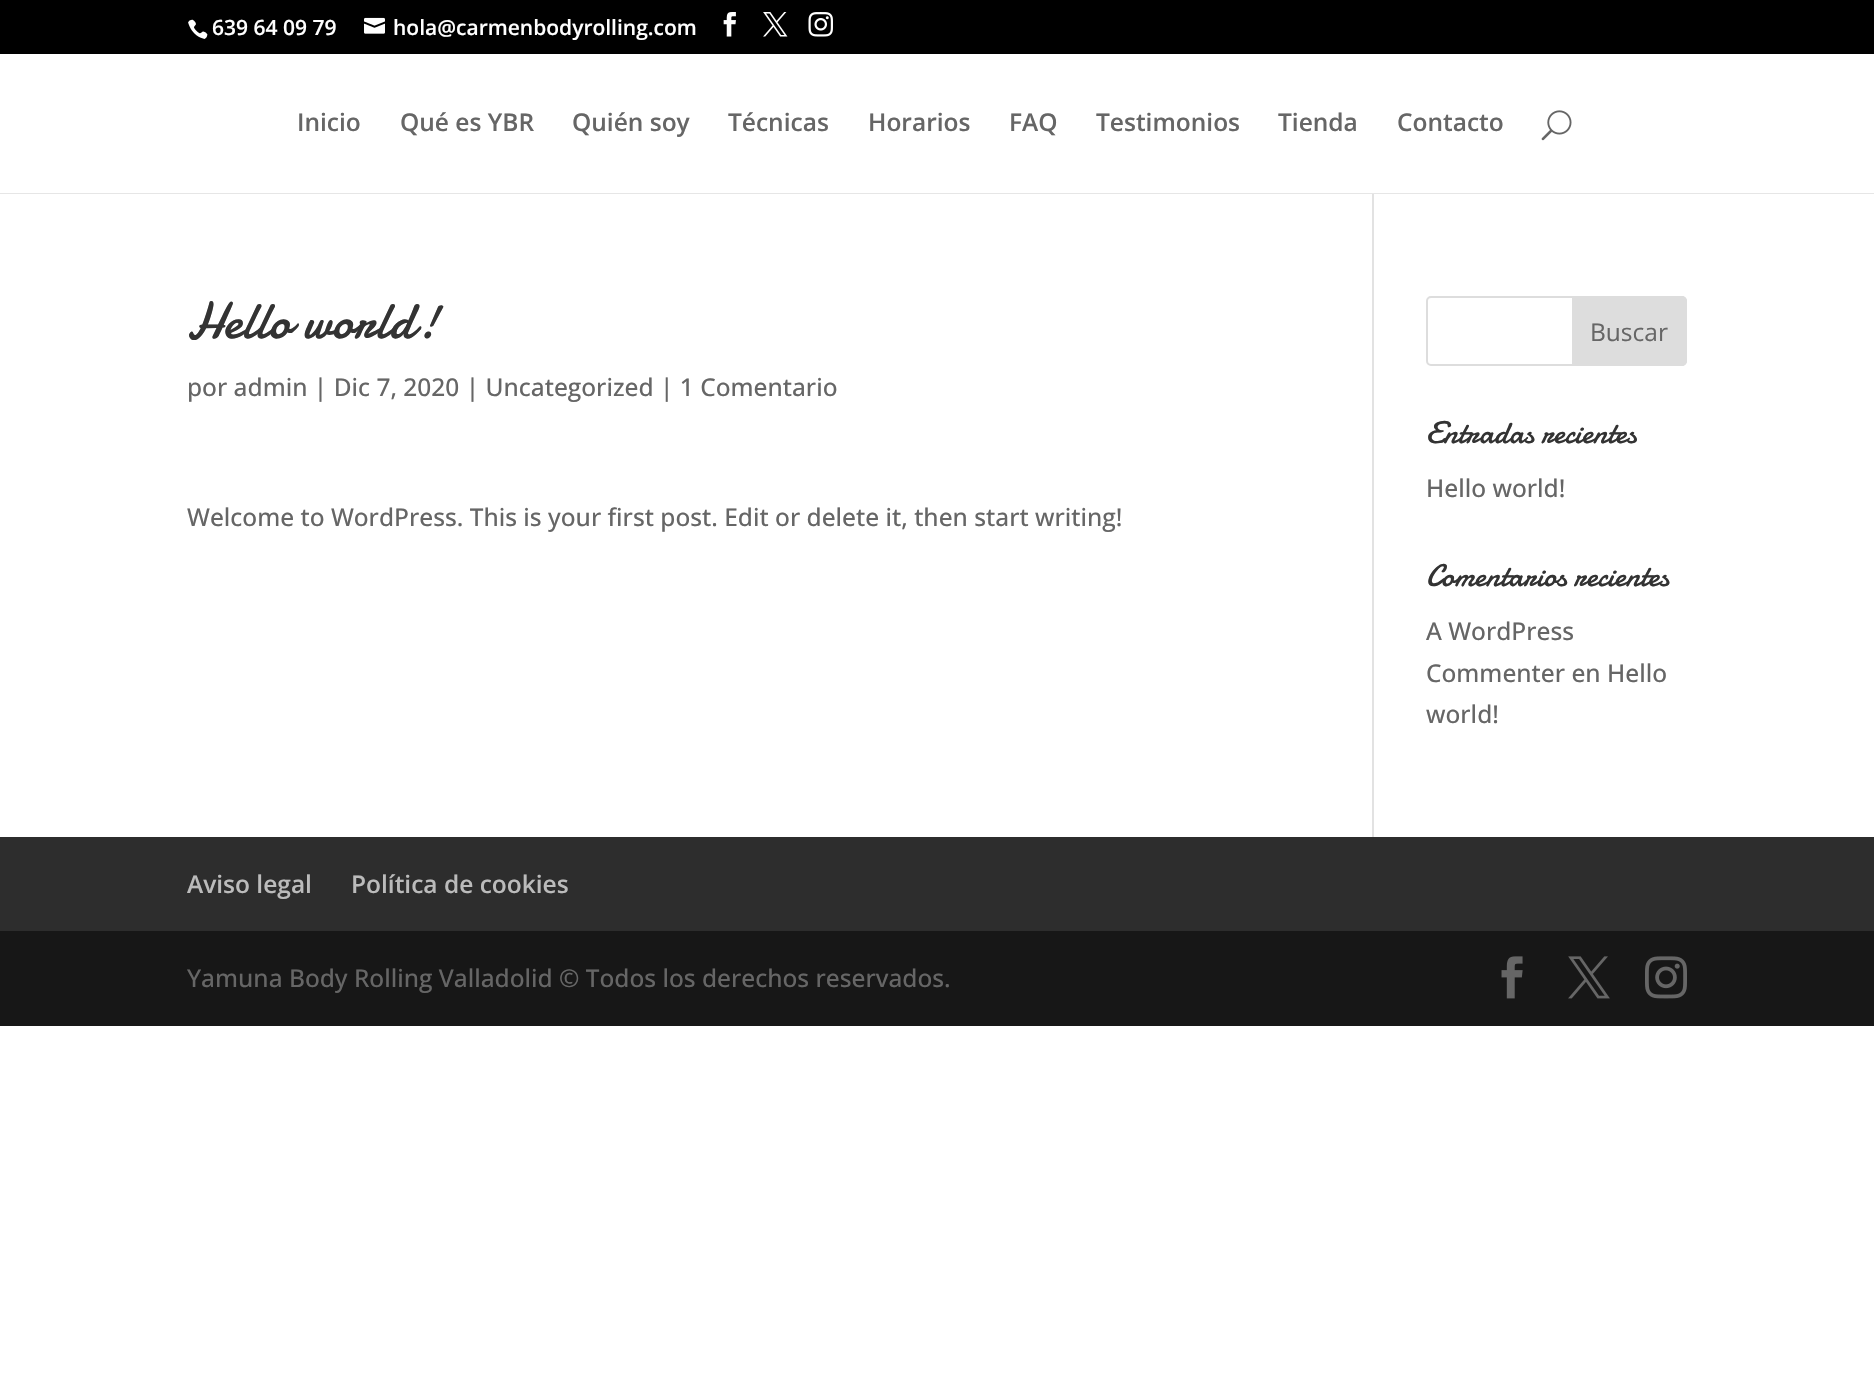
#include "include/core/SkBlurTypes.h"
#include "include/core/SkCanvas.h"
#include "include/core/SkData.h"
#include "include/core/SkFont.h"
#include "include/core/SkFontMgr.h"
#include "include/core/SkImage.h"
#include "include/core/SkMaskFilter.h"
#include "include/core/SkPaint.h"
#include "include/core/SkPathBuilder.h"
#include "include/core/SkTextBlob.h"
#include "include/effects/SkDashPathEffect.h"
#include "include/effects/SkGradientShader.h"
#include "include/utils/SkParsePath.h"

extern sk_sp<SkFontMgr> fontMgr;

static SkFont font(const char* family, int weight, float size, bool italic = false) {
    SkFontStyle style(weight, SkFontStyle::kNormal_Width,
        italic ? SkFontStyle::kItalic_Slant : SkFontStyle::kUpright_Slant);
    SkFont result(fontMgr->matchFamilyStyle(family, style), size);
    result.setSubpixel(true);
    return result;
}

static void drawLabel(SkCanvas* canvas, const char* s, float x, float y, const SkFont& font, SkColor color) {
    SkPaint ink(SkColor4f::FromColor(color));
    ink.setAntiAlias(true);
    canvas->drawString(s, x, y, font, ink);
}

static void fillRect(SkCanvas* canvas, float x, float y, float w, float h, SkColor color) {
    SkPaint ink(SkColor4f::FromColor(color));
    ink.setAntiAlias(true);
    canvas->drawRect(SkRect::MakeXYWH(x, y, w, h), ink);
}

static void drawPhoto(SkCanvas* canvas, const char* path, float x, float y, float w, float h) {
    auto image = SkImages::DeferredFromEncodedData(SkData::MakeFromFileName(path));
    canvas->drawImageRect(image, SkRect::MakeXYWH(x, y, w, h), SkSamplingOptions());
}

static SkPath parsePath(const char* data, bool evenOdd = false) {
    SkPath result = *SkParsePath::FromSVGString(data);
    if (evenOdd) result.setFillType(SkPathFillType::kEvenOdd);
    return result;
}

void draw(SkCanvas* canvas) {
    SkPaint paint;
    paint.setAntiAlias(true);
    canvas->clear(0xFFFFFFFF);
    fillRect(canvas, 0, 0, 1874, 54, 0xFF000000);
    drawPhoto(canvas, "assets/img1.png", 188, 19, 20, 20);
    SkFont font1 = font("Open Sans", 600, 21);
    drawLabel(canvas, "639 64 09 79", 212, 35, font1, 0xFFFFFFFF);
    drawPhoto(canvas, "assets/img2.png", 364, 17, 21, 17);
    drawLabel(canvas, "hola@carmenbodyrolling.com", 393, 35, font1, 0xFFFFFFFF);
    drawPhoto(canvas, "assets/img3.png", 723, 12, 13, 25);
    drawPhoto(canvas, "assets/img4.png", 763, 12, 25, 25);
    drawPhoto(canvas, "assets/img5.png", 808, 12, 25, 25);
    fillRect(canvas, 0, 193, 1874, 1, 0xFFE6E6E6);
    SkFont font2 = font("Open Sans", 600, 24.5f);
    drawLabel(canvas, "Inicio", 297, 131, font2, 0xFF666666);
    drawLabel(canvas, "Qué es YBR", 400, 131, font2, 0xFF666666);
    drawLabel(canvas, "Quién soy", 572, 131, font2, 0xFF666666);
    drawLabel(canvas, "Técnicas", 728, 131, font2, 0xFF666666);
    drawLabel(canvas, "Horarios", 868, 131, font2, 0xFF666666);
    drawLabel(canvas, "FAQ", 1009, 131, font2, 0xFF666666);
    drawLabel(canvas, "Testimonios", 1096, 131, font2, 0xFF666666);
    drawLabel(canvas, "Tienda", 1278, 131, font2, 0xFF666666);
    drawLabel(canvas, "Contacto", 1397, 131, font2, 0xFF666666);
    drawPhoto(canvas, "assets/img6.png", 1541, 110, 31, 31);
    fillRect(canvas, 1372, 194, 2, 643, 0xFFE2E2E2);
    SkFont font3 = font("Damion", 400, 52.5f);
    drawLabel(canvas, "Hello world!", 187, 338, font3, 0xFF333333);
    SkFont font4 = font("Open Sans", 500, 24.5f);
    drawLabel(canvas, "por admin | Dic 7, 2020 | Uncategorized | 1 Comentario", 187, 396, font4, 0xFF666666);
    drawLabel(canvas, "Welcome to WordPress. This is your first post. Edit or delete it, then start writing!", 187, 526, font4, 0xFF666666);
    paint.setStroke(true);
    paint.setStrokeWidth(2);
    paint.setColor(0xFFDDDDDD);
    canvas->drawRoundRect(SkRect::MakeXYWH(1427, 297, 259, 68), 4, 4, paint);
    paint.setStroke(false);
    canvas->drawPath(parsePath("M1573 297H1682C1684 297 1686 299 1686 301V361C1686 363 1684 365 1682 365H1573Z"), paint);
    paint.setStroke(true);
    canvas->drawPath(parsePath("M1573 297H1682C1684 297 1686 299 1686 301V361C1686 363 1684 365 1682 365H1573Z"), paint);
    SkFont font5 = font("Open Sans", 400, 24.5f);
    drawLabel(canvas, "Buscar", 1590, 341, font5, 0xFF666666);
    SkFont font6 = font("Damion", 400, 31.5f);
    drawLabel(canvas, "Entradas recientes", 1426, 443, font6, 0xFF333333);
    drawLabel(canvas, "Hello world!", 1426, 497, font4, 0xFF666666);
    drawLabel(canvas, "Comentarios recientes", 1426, 586, font6, 0xFF333333);
    drawLabel(canvas, "A WordPress", 1426, 640, font4, 0xFF666666);
    drawLabel(canvas, "Commenter en Hello", 1426, 682, font4, 0xFF666666);
    drawLabel(canvas, "world!", 1426, 723, font4, 0xFF666666);
    fillRect(canvas, 0, 837, 1874, 94, 0xFF2D2D2D);
    drawLabel(canvas, "Aviso legal", 187, 893, font2, 0xFFBBBBBB);
    drawLabel(canvas, "Política de cookies", 351, 893, font2, 0xFFBBBBBB);
    fillRect(canvas, 0, 931, 1874, 95, 0xFF171717);
    drawLabel(canvas, "Yamuna Body Rolling Valladolid © Todos los derechos reservados.", 187, 987, font4, 0xFF666666);
    drawPhoto(canvas, "assets/img7.png", 1501, 956, 22, 43);
    drawPhoto(canvas, "assets/img8.png", 1568, 956, 42, 43);
    drawPhoto(canvas, "assets/img9.png", 1645, 956, 42, 43);
}
